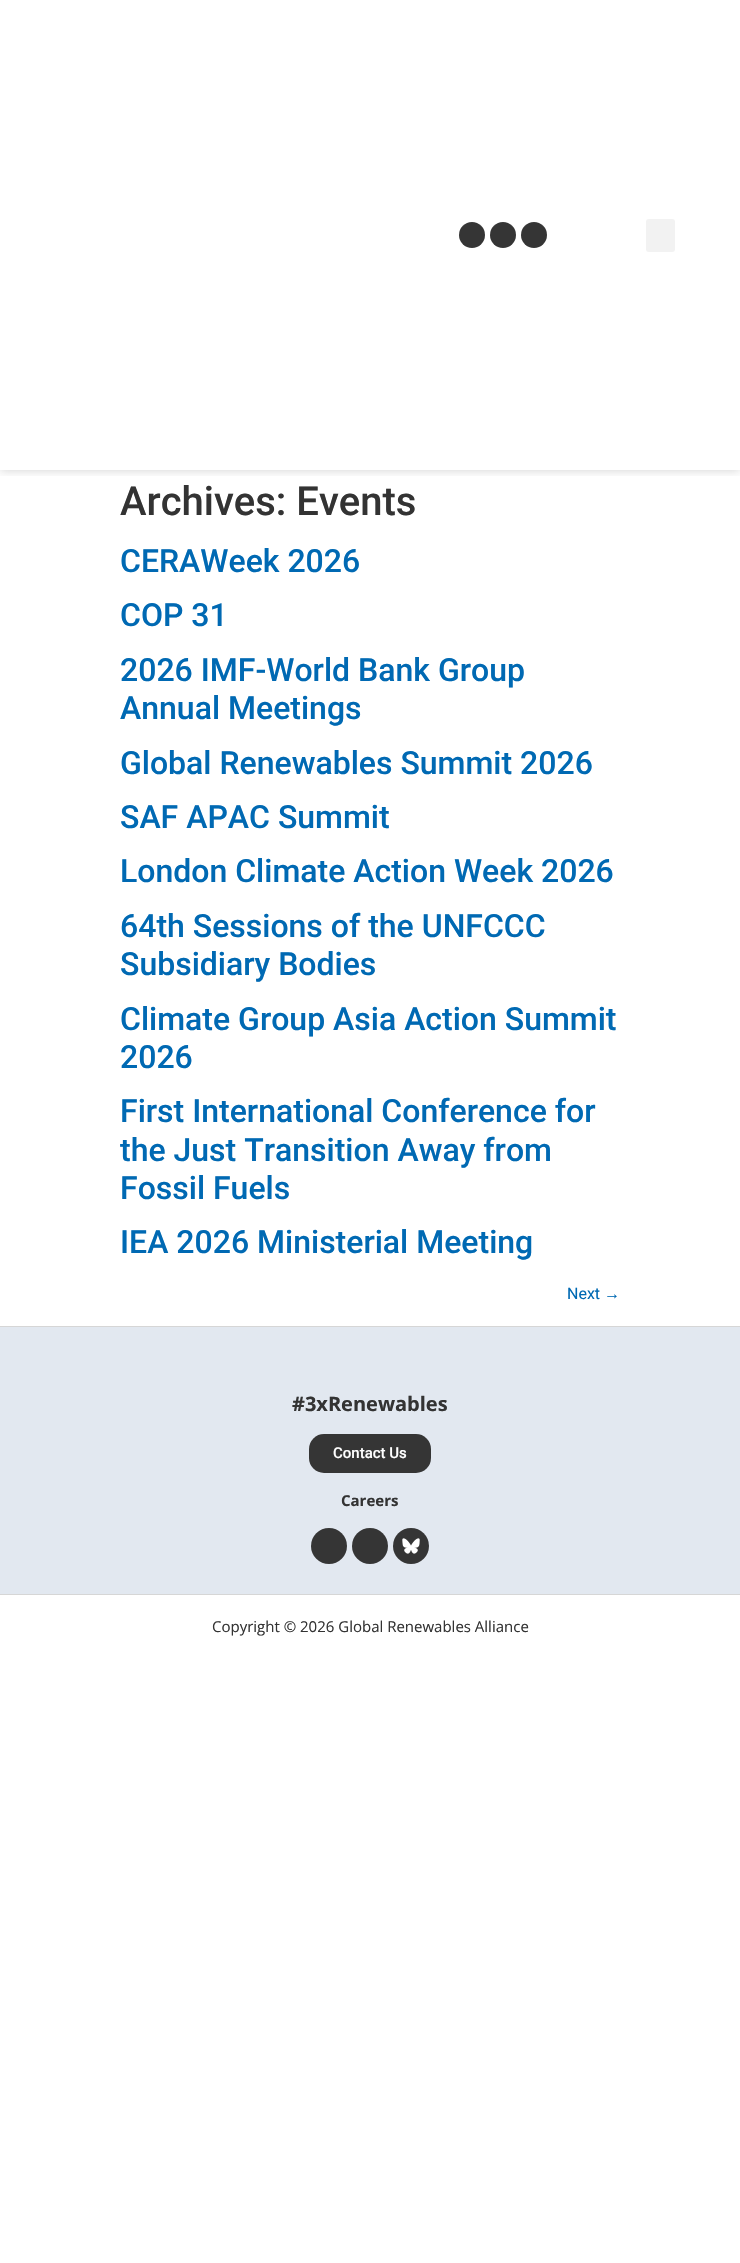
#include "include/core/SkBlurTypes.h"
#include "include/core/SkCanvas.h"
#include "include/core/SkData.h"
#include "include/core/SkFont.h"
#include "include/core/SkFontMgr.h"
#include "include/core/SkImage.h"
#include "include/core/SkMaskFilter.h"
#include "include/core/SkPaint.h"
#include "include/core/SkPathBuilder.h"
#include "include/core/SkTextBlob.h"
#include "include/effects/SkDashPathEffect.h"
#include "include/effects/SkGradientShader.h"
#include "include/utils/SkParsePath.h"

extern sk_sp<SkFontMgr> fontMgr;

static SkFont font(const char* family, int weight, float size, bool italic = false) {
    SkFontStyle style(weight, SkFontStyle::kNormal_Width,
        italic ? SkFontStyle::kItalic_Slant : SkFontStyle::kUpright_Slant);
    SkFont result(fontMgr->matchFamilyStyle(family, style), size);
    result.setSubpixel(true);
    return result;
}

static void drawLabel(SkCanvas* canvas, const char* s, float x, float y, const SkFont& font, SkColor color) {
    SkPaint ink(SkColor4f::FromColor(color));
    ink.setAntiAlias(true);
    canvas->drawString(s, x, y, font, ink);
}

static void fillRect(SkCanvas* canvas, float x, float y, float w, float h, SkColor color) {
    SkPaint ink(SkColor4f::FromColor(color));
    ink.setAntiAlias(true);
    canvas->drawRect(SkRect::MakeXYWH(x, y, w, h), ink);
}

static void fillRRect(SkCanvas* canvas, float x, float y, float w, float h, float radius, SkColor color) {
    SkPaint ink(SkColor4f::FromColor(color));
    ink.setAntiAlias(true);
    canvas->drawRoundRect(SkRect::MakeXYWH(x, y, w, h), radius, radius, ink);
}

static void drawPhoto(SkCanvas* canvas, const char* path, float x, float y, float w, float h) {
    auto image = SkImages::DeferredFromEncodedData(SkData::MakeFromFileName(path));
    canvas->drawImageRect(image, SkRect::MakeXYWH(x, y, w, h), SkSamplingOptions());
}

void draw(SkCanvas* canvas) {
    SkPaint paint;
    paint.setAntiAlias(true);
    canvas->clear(0xFFFFFFFF);
    canvas->save();
    canvas->clipRect(SkRect::MakeXYWH(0, 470, 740, 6));
    paint.setColor(0x2E000000);
    paint.setMaskFilter(SkMaskFilter::MakeBlur(kNormal_SkBlurStyle, 5));
    canvas->drawRect(SkRect::MakeXYWH(0, 0, 740, 470), paint);
    paint.setMaskFilter(nullptr);
    canvas->restore();
    paint.setColor(0xFF353535);
    canvas->drawCircle(472, 235, 13, paint);
    canvas->drawCircle(503, 235, 13, paint);
    canvas->drawCircle(534, 235, 13, paint);
    fillRRect(canvas, 646, 219, 29, 33, 3, 0xFFF2F2F2);
    SkFont font1 = font("Roboto", 500, 40);
    drawLabel(canvas, "Archives: Events", 120, 515, font1, 0xFF333333);
    SkFont font2 = font("Roboto", 500, 32);
    drawLabel(canvas, "CERAWeek 2026", 120, 572, font2, 0xFF0069B3);
    drawLabel(canvas, "COP 31", 120, 626, font2, 0xFF0069B3);
    drawLabel(canvas, "2026 IMF-World Bank Group", 120, 681, font2, 0xFF0069B3);
    drawLabel(canvas, "Annual Meetings", 120, 719, font2, 0xFF0069B3);
    drawLabel(canvas, "Global Renewables Summit 2026", 120, 774, font2, 0xFF0069B3);
    drawLabel(canvas, "SAF APAC Summit", 120, 828, font2, 0xFF0069B3);
    drawLabel(canvas, "London Climate Action Week 2026", 120, 882, font2, 0xFF0069B3);
    drawLabel(canvas, "64th Sessions of the UNFCCC", 120, 937, font2, 0xFF0069B3);
    drawLabel(canvas, "Subsidiary Bodies", 120, 975, font2, 0xFF0069B3);
    drawLabel(canvas, "Climate Group Asia Action Summit", 120, 1030, font2, 0xFF0069B3);
    drawLabel(canvas, "2026", 120, 1068, font2, 0xFF0069B3);
    drawLabel(canvas, "First International Conference for", 120, 1122, font2, 0xFF0069B3);
    drawLabel(canvas, "the Just Transition Away from", 120, 1161, font2, 0xFF0069B3);
    drawLabel(canvas, "Fossil Fuels", 120, 1199, font2, 0xFF0069B3);
    drawLabel(canvas, "IEA 2026 Ministerial Meeting", 120, 1253, font2, 0xFF0069B3);
    SkFont font3 = font("Roboto", 400, 16);
    drawLabel(canvas, "Next", 567, 1299, font3, 0xFF0069B3);
    SkFont font4 = font("Liberation Sans", 400, 16);
    drawLabel(canvas, "→", 604, 1299, font4, 0xFF0069B3);
    fillRect(canvas, 0, 1326, 740, 1, 0xFFD6D6D6);
    fillRect(canvas, 0, 1327, 740, 267, 0xFFE2E8F0);
    SkFont font5 = font("Open Sans", 700, 20);
    drawLabel(canvas, "#3xRenewables", 292, 1411, font5, 0xFF333333);
    fillRRect(canvas, 309, 1434, 122, 39, 15, 0xFF353535);
    SkFont font6 = font("Roboto", 500, 15);
    drawLabel(canvas, "Contact Us", 333, 1458, font6, 0xFFFFFFFF);
    SkFont font7 = font("Open Sans", 700, 15);
    drawLabel(canvas, "Careers", 341, 1506, font7, 0xFF333333);
    canvas->drawCircle(329, 1546, 18, paint);
    canvas->drawCircle(370, 1546, 18, paint);
    canvas->drawCircle(411, 1546, 18, paint);
    drawPhoto(canvas, "assets/img1.png", 402, 1538, 18, 16);
    fillRect(canvas, 0, 1594, 740, 1, 0xFFD6D6D6);
    SkFont font8 = font("Open Sans", 400, 15);
    drawLabel(canvas, "Copyright © 2026 Global Renewables Alliance", 212, 1632, font8, 0xFF333333);
}
